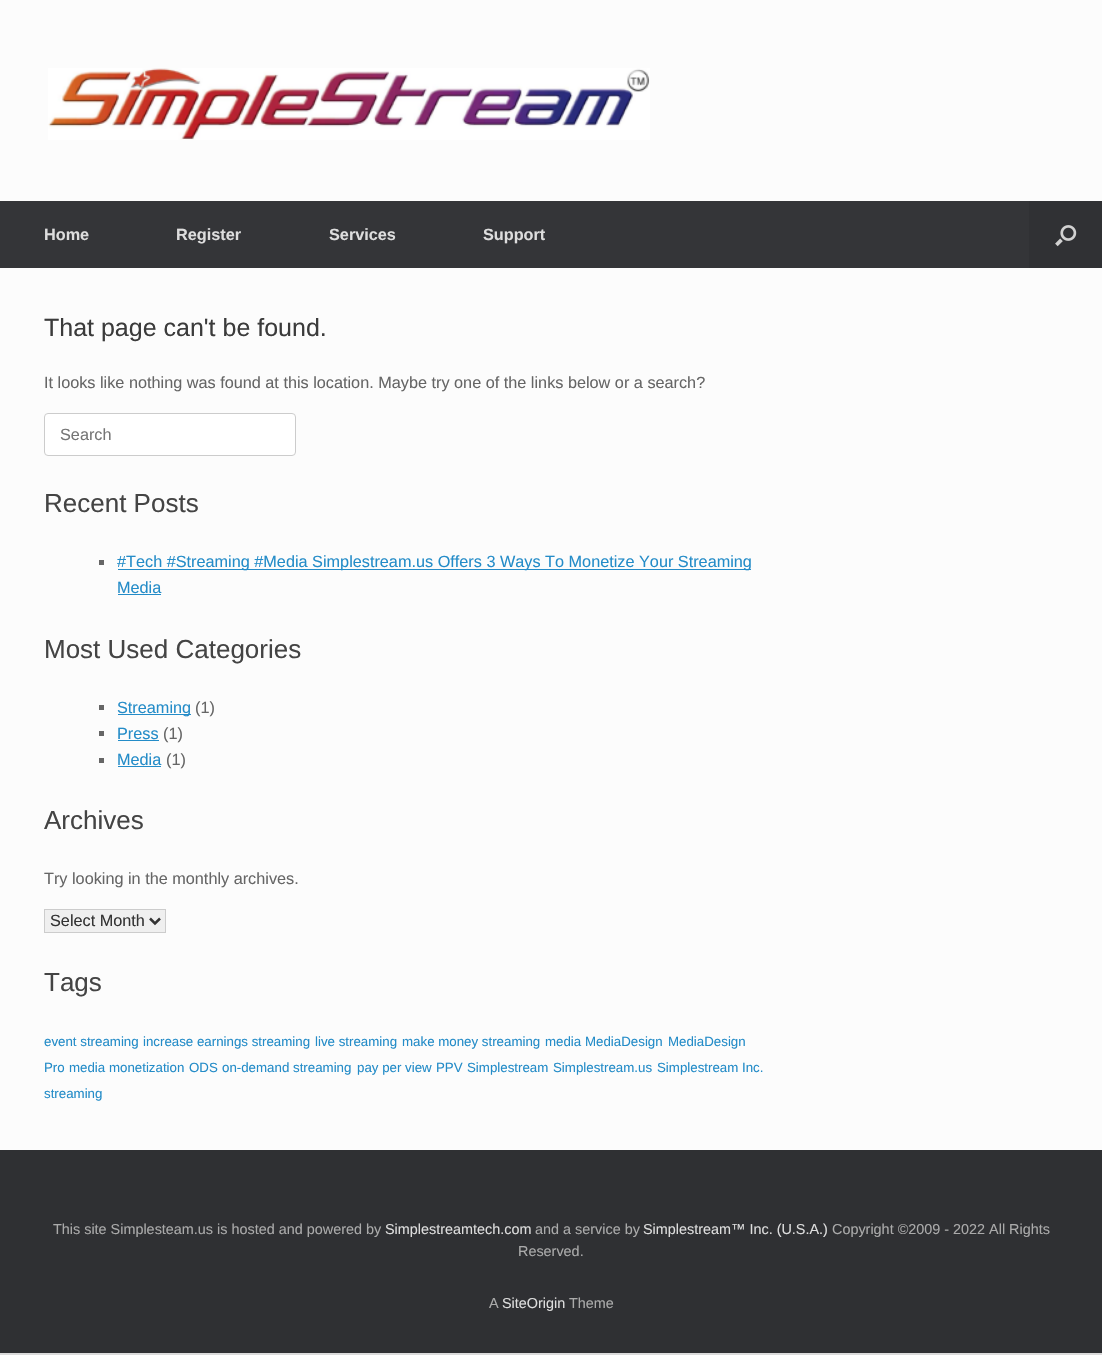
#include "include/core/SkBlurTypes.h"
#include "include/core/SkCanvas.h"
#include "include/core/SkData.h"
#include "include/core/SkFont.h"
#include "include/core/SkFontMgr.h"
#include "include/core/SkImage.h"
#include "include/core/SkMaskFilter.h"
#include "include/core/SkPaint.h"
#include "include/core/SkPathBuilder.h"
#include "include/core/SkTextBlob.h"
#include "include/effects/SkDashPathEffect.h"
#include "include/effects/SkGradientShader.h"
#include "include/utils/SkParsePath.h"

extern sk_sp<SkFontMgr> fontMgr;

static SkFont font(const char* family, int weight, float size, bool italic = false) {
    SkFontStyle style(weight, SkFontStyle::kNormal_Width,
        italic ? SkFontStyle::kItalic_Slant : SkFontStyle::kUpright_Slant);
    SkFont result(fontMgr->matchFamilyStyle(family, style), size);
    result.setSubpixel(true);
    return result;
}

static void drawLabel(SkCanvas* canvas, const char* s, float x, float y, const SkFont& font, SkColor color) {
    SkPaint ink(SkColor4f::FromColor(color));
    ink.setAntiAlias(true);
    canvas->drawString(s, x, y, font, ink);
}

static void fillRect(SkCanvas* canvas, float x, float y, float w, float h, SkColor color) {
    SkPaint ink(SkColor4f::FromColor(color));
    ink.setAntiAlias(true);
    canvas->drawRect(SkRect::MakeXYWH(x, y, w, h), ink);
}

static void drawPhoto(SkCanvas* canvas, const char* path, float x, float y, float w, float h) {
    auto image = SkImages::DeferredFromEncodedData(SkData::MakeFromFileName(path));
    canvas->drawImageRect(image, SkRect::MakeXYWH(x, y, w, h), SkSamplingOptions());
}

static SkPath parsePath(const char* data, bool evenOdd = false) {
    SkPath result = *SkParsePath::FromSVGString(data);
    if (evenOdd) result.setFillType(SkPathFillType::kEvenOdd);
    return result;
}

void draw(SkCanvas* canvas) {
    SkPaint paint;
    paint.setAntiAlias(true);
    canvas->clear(0xFFDADADA);
    fillRect(canvas, 0, 0, 1102, 201, 0xFFFCFCFC);
    drawPhoto(canvas, "assets/img1.png", 48, 68, 602, 72);
    fillRect(canvas, 0, 201, 1029, 67, 0xFF343538);
    SkFont font1 = font("Liberation Sans", 700, 16.25f);
    drawLabel(canvas, "Home", 44, 240, font1, 0xFFDDDDDD);
    drawLabel(canvas, "Register", 176, 240, font1, 0xFFDDDDDD);
    drawLabel(canvas, "Services", 329, 240, font1, 0xFFDDDDDD);
    drawLabel(canvas, "Support", 483, 240, font1, 0xFFDDDDDD);
    fillRect(canvas, 1029, 201, 73, 67, 0xFF303134);
    drawPhoto(canvas, "assets/img2.png", 1055, 225, 22, 22);
    fillRect(canvas, 0, 268, 1102, 882, 0xFFFCFCFC);
    SkFont font2 = font("Liberation Sans", 400, 25);
    drawLabel(canvas, "That page can't be found.", 44, 336, font2, 0xFF3B3B3B);
    SkFont font3 = font("Liberation Sans", 400, 16.25f);
    drawLabel(canvas, "It looks like nothing was found at this location. Maybe try one of the links below or a search?", 44, 388, font3, 0xFF666666);
    paint.setColor(0xFFFFFFFF);
    canvas->drawRoundRect(SkRect::MakeXYWH(44.5f, 413.5f, 251, 42), 3.5f, 3.5f, paint);
    paint.setStroke(true);
    paint.setStrokeWidth(1);
    paint.setColor(0xFFCCCCCC);
    canvas->drawRoundRect(SkRect::MakeXYWH(44.5f, 413.5f, 251, 42), 3.5f, 3.5f, paint);
    drawLabel(canvas, "Search", 60, 440, font3, 0xFF757575);
    SkFont font4 = font("Liberation Sans", 400, 26);
    drawLabel(canvas, "Recent Posts", 44, 512, font4, 0xFF444444);
    fillRect(canvas, 99, 560, 5, 5, 0xFF666666);
    fillRect(canvas, 118, 569, 633, 1, 0xFF248CC8);
    drawLabel(canvas, "#Tech #Streaming #Media Simplestream.us Offers 3 Ways To Monetize Your Streaming", 117, 567, font3, 0xFF248CC8);
    drawLabel(canvas, "Media", 117, 593, font3, 0xFF248CC8);
    fillRect(canvas, 118, 594, 43, 1, 0xFF248CC8);
    drawLabel(canvas, "Most Used Categories", 44, 658, font4, 0xFF444444);
    fillRect(canvas, 99, 705, 5, 5, 0xFF666666);
    fillRect(canvas, 118, 714, 73, 1, 0xFF248CC8);
    drawLabel(canvas, "Streaming", 117, 713, font3, 0xFF248CC8);
    drawLabel(canvas, "(1)", 195, 713, font3, 0xFF666666);
    fillRect(canvas, 99, 731, 5, 5, 0xFF666666);
    drawLabel(canvas, "Press", 117, 739, font3, 0xFF248CC8);
    fillRect(canvas, 118, 740, 41, 1, 0xFF248CC8);
    drawLabel(canvas, "(1)", 163, 739, font3, 0xFF666666);
    fillRect(canvas, 99, 758, 5, 5, 0xFF666666);
    drawLabel(canvas, "Media", 117, 765, font3, 0xFF248CC8);
    fillRect(canvas, 118, 766, 43, 1, 0xFF248CC8);
    drawLabel(canvas, "(1)", 166, 765, font3, 0xFF666666);
    drawLabel(canvas, "Archives", 44, 829, font4, 0xFF444444);
    drawLabel(canvas, "Try looking in the monthly archives.", 44, 884, font3, 0xFF666666);
    paint.setStroke(false);
    paint.setColor(0xFFEFEFEF);
    canvas->drawRect(SkRect::MakeXYWH(44.5f, 909.5f, 121, 23), paint);
    paint.setStroke(true);
    paint.setColor(0xFFCCCCCC);
    canvas->drawRect(SkRect::MakeXYWH(44.5f, 909.5f, 121, 23), paint);
    paint.setStrokeWidth(2.5f);
    paint.setColor(0xFF333333);
    canvas->drawPath(parsePath("M150 918.5L155 923.5L160 918.5"), paint);
    drawLabel(canvas, "Select Month", 50, 926, font3, 0xFF333333);
    drawLabel(canvas, "Tags", 44, 991, font4, 0xFF444444);
    SkFont font5 = font("Liberation Sans", 400, 13.3f);
    drawLabel(canvas, "event streaming", 44, 1046, font5, 0xFF248CC8);
    drawLabel(canvas, "increase earnings streaming", 143, 1046, font5, 0xFF248CC8);
    drawLabel(canvas, "live streaming", 315, 1046, font5, 0xFF248CC8);
    drawLabel(canvas, "make money streaming", 402, 1046, font5, 0xFF248CC8);
    drawLabel(canvas, "media", 545, 1046, font5, 0xFF248CC8);
    drawLabel(canvas, "MediaDesign", 585, 1046, font5, 0xFF248CC8);
    drawLabel(canvas, "MediaDesign", 668, 1046, font5, 0xFF248CC8);
    drawLabel(canvas, "Pro", 44, 1072, font5, 0xFF248CC8);
    drawLabel(canvas, "media monetization", 69, 1072, font5, 0xFF248CC8);
    drawLabel(canvas, "ODS", 189, 1072, font5, 0xFF248CC8);
    drawLabel(canvas, "on-demand streaming", 222, 1072, font5, 0xFF248CC8);
    drawLabel(canvas, "pay per view", 357, 1072, font5, 0xFF248CC8);
    drawLabel(canvas, "PPV", 436, 1072, font5, 0xFF248CC8);
    drawLabel(canvas, "Simplestream", 467, 1072, font5, 0xFF248CC8);
    drawLabel(canvas, "Simplestream.us", 553, 1072, font5, 0xFF248CC8);
    drawLabel(canvas, "Simplestream Inc.", 657, 1072, font5, 0xFF248CC8);
    drawLabel(canvas, "streaming", 44, 1098, font5, 0xFF248CC8);
    fillRect(canvas, 0, 1150, 1102, 203, 0xFF2F3033);
    SkFont font6 = font("Liberation Sans", 400, 14.4f);
    drawLabel(canvas, "This site Simplesteam.us is hosted and powered by", 53, 1234, font6, 0xFFAAAAAA);
    drawLabel(canvas, "Simplestreamtech.com", 385, 1234, font6, 0xFFDDDDDD);
    drawLabel(canvas, "and a service by", 535, 1234, font6, 0xFFAAAAAA);
    drawLabel(canvas, "Simplestream™ Inc. (U.S.A.)", 643, 1234, font6, 0xFFDDDDDD);
    drawLabel(canvas, "Copyright ©2009 - 2022 All Rights", 832, 1234, font6, 0xFFAAAAAA);
    drawLabel(canvas, "Reserved.", 518, 1256, font6, 0xFFAAAAAA);
    drawLabel(canvas, "A", 489, 1308, font6, 0xFFAAAAAA);
    drawLabel(canvas, "SiteOrigin", 502, 1308, font6, 0xFFDDDDDD);
    drawLabel(canvas, "Theme", 569, 1308, font6, 0xFFAAAAAA);
}
